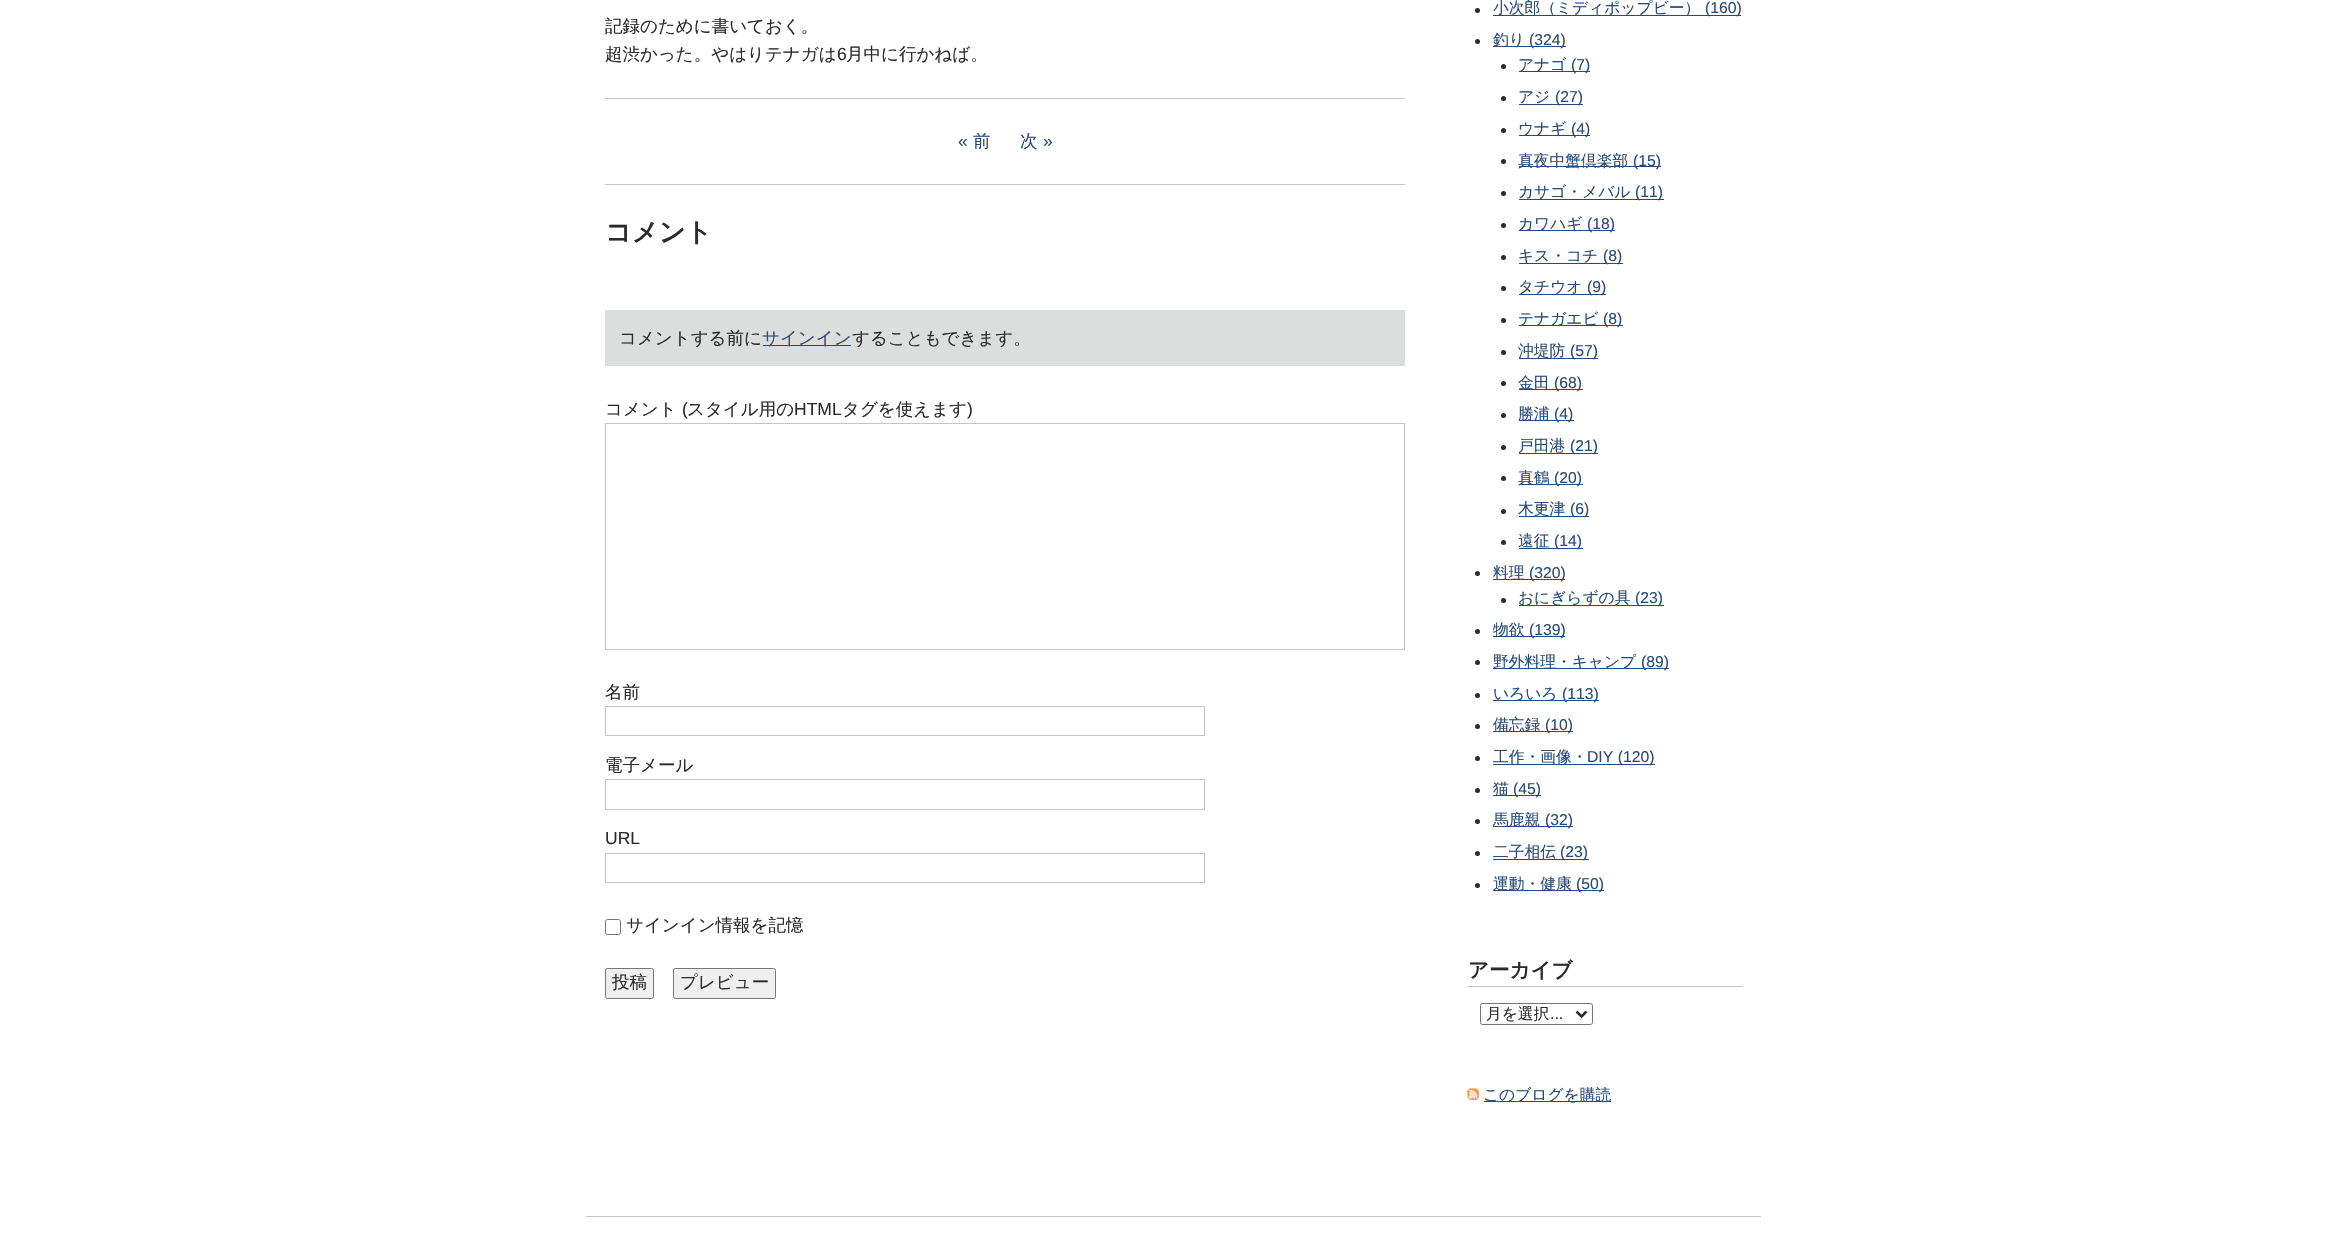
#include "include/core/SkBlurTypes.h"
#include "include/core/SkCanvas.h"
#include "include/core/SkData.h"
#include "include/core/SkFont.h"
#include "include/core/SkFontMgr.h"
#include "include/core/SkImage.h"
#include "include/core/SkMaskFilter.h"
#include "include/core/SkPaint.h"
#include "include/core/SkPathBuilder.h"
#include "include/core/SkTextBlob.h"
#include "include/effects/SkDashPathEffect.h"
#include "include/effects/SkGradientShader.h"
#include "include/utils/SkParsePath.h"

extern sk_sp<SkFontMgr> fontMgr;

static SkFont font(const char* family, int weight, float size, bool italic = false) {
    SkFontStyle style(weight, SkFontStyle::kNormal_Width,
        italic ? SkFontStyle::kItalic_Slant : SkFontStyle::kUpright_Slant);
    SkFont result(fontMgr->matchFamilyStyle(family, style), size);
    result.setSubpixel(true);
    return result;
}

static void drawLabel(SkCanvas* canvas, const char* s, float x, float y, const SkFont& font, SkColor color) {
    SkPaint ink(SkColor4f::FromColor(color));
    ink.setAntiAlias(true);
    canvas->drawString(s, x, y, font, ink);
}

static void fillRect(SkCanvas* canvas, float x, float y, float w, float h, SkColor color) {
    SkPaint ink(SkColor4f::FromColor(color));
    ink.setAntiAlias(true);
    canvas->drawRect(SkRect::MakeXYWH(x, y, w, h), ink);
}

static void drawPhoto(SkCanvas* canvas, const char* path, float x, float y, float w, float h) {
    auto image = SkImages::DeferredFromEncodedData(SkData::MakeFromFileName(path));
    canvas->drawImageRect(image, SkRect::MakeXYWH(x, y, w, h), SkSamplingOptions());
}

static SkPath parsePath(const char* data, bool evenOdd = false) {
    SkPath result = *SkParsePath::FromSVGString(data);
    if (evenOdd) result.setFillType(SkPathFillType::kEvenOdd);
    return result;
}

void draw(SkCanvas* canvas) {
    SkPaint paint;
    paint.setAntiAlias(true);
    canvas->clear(0xFFFFFFFF);
    SkFont font1 = font("WenQuanYi Zen Hei", 500, 17.5f);
    drawLabel(canvas, "記録のために書いておく。", 605, 32, font1, 0xFF2B2B2B);
    drawLabel(canvas, "超渋かった。やはりテナガは", 605, 60, font1, 0xFF2B2B2B);
    SkFont font2 = font("Liberation Sans", 400, 17.5f);
    drawLabel(canvas, "6", 837, 60, font2, 0xFF2B2B2B);
    drawLabel(canvas, "月中に行かねば。", 846, 60, font1, 0xFF2B2B2B);
    fillRect(canvas, 605, 98, 800, 1, 0xFFC0C6C9);
    drawLabel(canvas, "«", 958, 147, font2, 0xFF274A78);
    drawLabel(canvas, "前", 973, 147, font1, 0xFF274A78);
    drawLabel(canvas, "次", 1020, 147, font1, 0xFF274A78);
    drawLabel(canvas, "»", 1043, 147, font2, 0xFF274A78);
    fillRect(canvas, 605, 184, 800, 1, 0xFFC0C6C9);
    SkFont font3 = font("WenQuanYi Zen Hei", 700, 26.25f);
    drawLabel(canvas, "コメント", 605, 241, font3, 0xFF2B2B2B);
    fillRect(canvas, 605, 310, 800, 56, 0xFFDCDDDD);
    drawLabel(canvas, "コメントする前に", 619, 344, font1, 0xFF2B2B2B);
    fillRect(canvas, 763, 345, 88, 1, 0xFF274A78);
    drawLabel(canvas, "サインイン", 762, 344, font1, 0xFF274A78);
    drawLabel(canvas, "することもできます。", 852, 344, font1, 0xFF2B2B2B);
    drawLabel(canvas, "コメント", 605, 415, font1, 0xFF2B2B2B);
    drawLabel(canvas, "(", 682, 415, font2, 0xFF2B2B2B);
    drawLabel(canvas, "スタイル用の", 687, 415, font1, 0xFF2B2B2B);
    drawLabel(canvas, "HTML", 794, 415, font2, 0xFF2B2B2B);
    drawLabel(canvas, "タグを使えます", 842, 415, font1, 0xFF2B2B2B);
    drawLabel(canvas, ")", 967, 415, font2, 0xFF2B2B2B);
    paint.setStroke(true);
    paint.setStrokeWidth(1);
    paint.setColor(0xFFC0C6C9);
    canvas->drawRect(SkRect::MakeXYWH(605.5f, 423.5f, 799, 226), paint);
    drawLabel(canvas, "名前", 605, 698, font1, 0xFF2B2B2B);
    canvas->drawRect(SkRect::MakeXYWH(605.5f, 706.5f, 599, 29), paint);
    drawLabel(canvas, "電子メール", 605, 771, font1, 0xFF2B2B2B);
    canvas->drawRect(SkRect::MakeXYWH(605.5f, 779.5f, 599, 30), paint);
    drawLabel(canvas, "URL", 605, 844, font2, 0xFF2B2B2B);
    canvas->drawRect(SkRect::MakeXYWH(605.5f, 853.5f, 599, 29), paint);
    paint.setColor(0xFF767676);
    canvas->drawRoundRect(SkRect::MakeXYWH(605.5f, 919.5f, 15, 15), 2, 2, paint);
    drawLabel(canvas, "サインイン情報を記憶", 626, 931, font1, 0xFF2B2B2B);
    paint.setStroke(false);
    paint.setColor(0xFFEFEFEF);
    canvas->drawRoundRect(SkRect::MakeXYWH(605.5f, 968.5f, 48, 30), 2, 2, paint);
    paint.setStroke(true);
    paint.setColor(0xFF767676);
    canvas->drawRoundRect(SkRect::MakeXYWH(605.5f, 968.5f, 48, 30), 2, 2, paint);
    drawLabel(canvas, "投稿", 612, 988, font1, 0xFF2B2B2B);
    paint.setStroke(false);
    paint.setColor(0xFFEFEFEF);
    canvas->drawRoundRect(SkRect::MakeXYWH(673.5f, 968.5f, 102, 30), 2, 2, paint);
    paint.setStroke(true);
    paint.setColor(0xFF767676);
    canvas->drawRoundRect(SkRect::MakeXYWH(673.5f, 968.5f, 102, 30), 2, 2, paint);
    drawLabel(canvas, "プレビュー", 680, 988, font1, 0xFF2B2B2B);
    paint.setStroke(false);
    paint.setColor(0xFF2B2B2B);
    canvas->drawCircle(1477.5f, 10.5f, 2.5f, paint);
    fillRect(canvas, 1493, 15, 248, 1, 0xFF274A78);
    SkFont font4 = font("WenQuanYi Zen Hei", 500, 15.75f);
    drawLabel(canvas, "小次郎（ミディポップビー）", 1493, 13, font4, 0xFF274A78);
    SkFont font5 = font("Liberation Sans", 400, 15.75f);
    drawLabel(canvas, "(160)", 1705, 13, font5, 0xFF274A78);
    canvas->drawCircle(1477.5f, 41.5f, 2.5f, paint);
    fillRect(canvas, 1493, 46, 73, 1, 0xFF274A78);
    drawLabel(canvas, "釣り", 1493, 45, font4, 0xFF274A78);
    drawLabel(canvas, "(324)", 1529, 45, font5, 0xFF274A78);
    canvas->drawCircle(1503.5f, 66.5f, 2.5f, paint);
    fillRect(canvas, 1519, 71, 71, 1, 0xFF274A78);
    drawLabel(canvas, "アナゴ", 1518, 70, font4, 0xFF274A78);
    drawLabel(canvas, "(7)", 1571, 70, font5, 0xFF274A78);
    canvas->drawCircle(1503.5f, 98.5f, 2.5f, paint);
    drawLabel(canvas, "アジ", 1518, 102, font4, 0xFF274A78);
    fillRect(canvas, 1519, 104, 64, 1, 0xFF274A78);
    drawLabel(canvas, "(27)", 1555, 102, font5, 0xFF274A78);
    canvas->drawCircle(1503.5f, 130.5f, 2.5f, paint);
    fillRect(canvas, 1519, 135, 71, 1, 0xFF274A78);
    drawLabel(canvas, "ウナギ", 1518, 134, font4, 0xFF274A78);
    drawLabel(canvas, "(4)", 1571, 134, font5, 0xFF274A78);
    canvas->drawCircle(1503.5f, 161.5f, 2.5f, paint);
    fillRect(canvas, 1519, 166, 142, 1, 0xFF274A78);
    drawLabel(canvas, "真夜中蟹倶楽部", 1518, 166, font4, 0xFF274A78);
    drawLabel(canvas, "(15)", 1633, 166, font5, 0xFF274A78);
    canvas->drawCircle(1503.5f, 193.5f, 2.5f, paint);
    fillRect(canvas, 1519, 199, 145, 1, 0xFF274A78);
    drawLabel(canvas, "カサゴ・メバル", 1518, 197, font4, 0xFF274A78);
    drawLabel(canvas, "(11)", 1635, 197, font5, 0xFF274A78);
    canvas->drawCircle(1503.5f, 225.5f, 2.5f, paint);
    fillRect(canvas, 1519, 230, 96, 1, 0xFF274A78);
    drawLabel(canvas, "カワハギ", 1518, 229, font4, 0xFF274A78);
    drawLabel(canvas, "(18)", 1587, 229, font5, 0xFF274A78);
    canvas->drawCircle(1503.5f, 257.5f, 2.5f, paint);
    fillRect(canvas, 1519, 263, 104, 1, 0xFF274A78);
    drawLabel(canvas, "キス・コチ", 1518, 261, font4, 0xFF274A78);
    drawLabel(canvas, "(8)", 1603, 261, font5, 0xFF274A78);
    canvas->drawCircle(1503.5f, 288.5f, 2.5f, paint);
    fillRect(canvas, 1519, 294, 87, 1, 0xFF274A78);
    drawLabel(canvas, "タチウオ", 1518, 292, font4, 0xFF274A78);
    drawLabel(canvas, "(9)", 1587, 292, font5, 0xFF274A78);
    canvas->drawCircle(1503.5f, 320.5f, 2.5f, paint);
    fillRect(canvas, 1519, 325, 104, 1, 0xFF274A78);
    drawLabel(canvas, "テナガエビ", 1518, 324, font4, 0xFF274A78);
    drawLabel(canvas, "(8)", 1603, 324, font5, 0xFF274A78);
    canvas->drawCircle(1503.5f, 352.5f, 2.5f, paint);
    fillRect(canvas, 1519, 358, 79, 1, 0xFF274A78);
    drawLabel(canvas, "沖堤防", 1518, 356, font4, 0xFF274A78);
    drawLabel(canvas, "(57)", 1570, 356, font5, 0xFF274A78);
    canvas->drawCircle(1503.5f, 383.5f, 2.5f, paint);
    fillRect(canvas, 1519, 389, 64, 1, 0xFF274A78);
    drawLabel(canvas, "金田", 1518, 388, font4, 0xFF274A78);
    drawLabel(canvas, "(68)", 1554, 388, font5, 0xFF274A78);
    canvas->drawCircle(1503.5f, 415.5f, 2.5f, paint);
    fillRect(canvas, 1519, 420, 55, 1, 0xFF274A78);
    drawLabel(canvas, "勝浦", 1518, 419, font4, 0xFF274A78);
    drawLabel(canvas, "(4)", 1554, 419, font5, 0xFF274A78);
    canvas->drawCircle(1503.5f, 447.5f, 2.5f, paint);
    fillRect(canvas, 1519, 453, 79, 1, 0xFF274A78);
    drawLabel(canvas, "戸田港", 1518, 451, font4, 0xFF274A78);
    drawLabel(canvas, "(21)", 1570, 451, font5, 0xFF274A78);
    canvas->drawCircle(1503.5f, 478.5f, 2.5f, paint);
    fillRect(canvas, 1519, 484, 64, 1, 0xFF274A78);
    drawLabel(canvas, "真鶴", 1518, 483, font4, 0xFF274A78);
    drawLabel(canvas, "(20)", 1554, 483, font5, 0xFF274A78);
    canvas->drawCircle(1503.5f, 511.5f, 2.5f, paint);
    fillRect(canvas, 1519, 516, 70, 1, 0xFF274A78);
    drawLabel(canvas, "木更津", 1518, 514, font4, 0xFF274A78);
    drawLabel(canvas, "(6)", 1570, 514, font5, 0xFF274A78);
    canvas->drawCircle(1503.5f, 542.5f, 2.5f, paint);
    fillRect(canvas, 1519, 548, 64, 1, 0xFF274A78);
    drawLabel(canvas, "遠征", 1518, 546, font4, 0xFF274A78);
    drawLabel(canvas, "(14)", 1554, 546, font5, 0xFF274A78);
    canvas->drawCircle(1477.5f, 573.5f, 2.5f, paint);
    fillRect(canvas, 1493, 579, 72, 1, 0xFF274A78);
    drawLabel(canvas, "料理", 1493, 578, font4, 0xFF274A78);
    drawLabel(canvas, "(320)", 1529, 578, font5, 0xFF274A78);
    canvas->drawCircle(1503.5f, 600.5f, 2.5f, paint);
    fillRect(canvas, 1519, 605, 145, 1, 0xFF274A78);
    drawLabel(canvas, "おにぎらずの具", 1518, 603, font4, 0xFF274A78);
    drawLabel(canvas, "(23)", 1635, 603, font5, 0xFF274A78);
    canvas->drawCircle(1477.5f, 631.5f, 2.5f, paint);
    fillRect(canvas, 1493, 636, 72, 1, 0xFF274A78);
    drawLabel(canvas, "物欲", 1493, 635, font4, 0xFF274A78);
    drawLabel(canvas, "(139)", 1529, 635, font5, 0xFF274A78);
    canvas->drawCircle(1477.5f, 662.5f, 2.5f, paint);
    fillRect(canvas, 1493, 668, 176, 1, 0xFF274A78);
    drawLabel(canvas, "野外料理・キャンプ", 1493, 667, font4, 0xFF274A78);
    drawLabel(canvas, "(89)", 1641, 667, font5, 0xFF274A78);
    canvas->drawCircle(1477.5f, 695.5f, 2.5f, paint);
    fillRect(canvas, 1493, 700, 106, 1, 0xFF274A78);
    drawLabel(canvas, "いろいろ", 1493, 699, font4, 0xFF274A78);
    drawLabel(canvas, "(113)", 1562, 699, font5, 0xFF274A78);
    canvas->drawCircle(1477.5f, 726.5f, 2.5f, paint);
    fillRect(canvas, 1493, 731, 80, 1, 0xFF274A78);
    drawLabel(canvas, "備忘録", 1493, 730, font4, 0xFF274A78);
    drawLabel(canvas, "(10)", 1545, 730, font5, 0xFF274A78);
    canvas->drawCircle(1477.5f, 758.5f, 2.5f, paint);
    fillRect(canvas, 1493, 764, 162, 1, 0xFF274A78);
    drawLabel(canvas, "工作・画像・", 1493, 762, font4, 0xFF274A78);
    drawLabel(canvas, "DIY (120)", 1587, 762, font5, 0xFF274A78);
    canvas->drawCircle(1477.5f, 790.5f, 2.5f, paint);
    fillRect(canvas, 1493, 795, 48, 1, 0xFF274A78);
    drawLabel(canvas, "猫", 1493, 794, font4, 0xFF274A78);
    drawLabel(canvas, "(45)", 1513, 794, font5, 0xFF274A78);
    canvas->drawCircle(1477.5f, 821.5f, 2.5f, paint);
    fillRect(canvas, 1493, 826, 80, 1, 0xFF274A78);
    drawLabel(canvas, "馬鹿親", 1493, 825, font4, 0xFF274A78);
    drawLabel(canvas, "(32)", 1545, 825, font5, 0xFF274A78);
    canvas->drawCircle(1477.5f, 853.5f, 2.5f, paint);
    fillRect(canvas, 1493, 859, 96, 1, 0xFF274A78);
    drawLabel(canvas, "二子相伝", 1493, 857, font4, 0xFF274A78);
    drawLabel(canvas, "(23)", 1560, 857, font5, 0xFF274A78);
    canvas->drawCircle(1477.5f, 885.5f, 2.5f, paint);
    fillRect(canvas, 1493, 890, 111, 1, 0xFF274A78);
    drawLabel(canvas, "運動・健康", 1493, 889, font4, 0xFF274A78);
    drawLabel(canvas, "(50)", 1576, 889, font5, 0xFF274A78);
    fillRect(canvas, 1468, 986, 275, 1, 0xFFC0C6C9);
    SkFont font6 = font("WenQuanYi Zen Hei", 700, 20.5f);
    drawLabel(canvas, "アーカイブ", 1468, 977, font6, 0xFF2B2B2B);
    paint.setStroke(true);
    paint.setColor(0xFF767676);
    canvas->drawRoundRect(SkRect::MakeXYWH(1480.5f, 1003.5f, 112, 21), 2, 2, paint);
    paint.setStrokeWidth(2.5f);
    paint.setColor(0xFF2B2B2B);
    canvas->drawPath(parsePath("M1576.5 1011.5L1581.5 1016.5L1586.5 1011.5"), paint);
    drawLabel(canvas, "月を選択", 1486, 1019, font4, 0xFF2B2B2B);
    drawLabel(canvas, "...", 1550, 1019, font5, 0xFF2B2B2B);
    drawPhoto(canvas, "assets/img1.png", 1467, 1088, 12, 12);
    fillRect(canvas, 1484, 1101, 127, 1, 0xFF274A78);
    drawLabel(canvas, "このブログを購読", 1483, 1100, font4, 0xFF274A78);
    fillRect(canvas, 586, 1216, 1175, 1, 0xFFC0C6C9);
}
